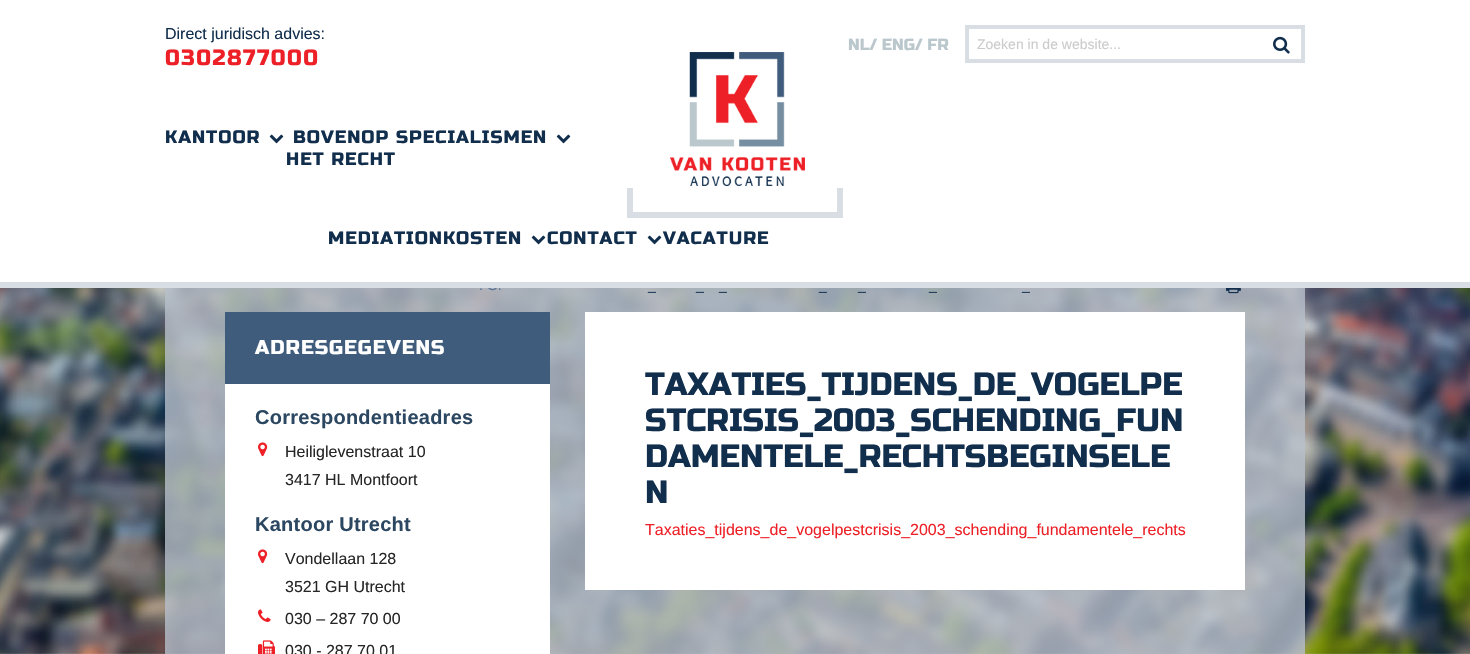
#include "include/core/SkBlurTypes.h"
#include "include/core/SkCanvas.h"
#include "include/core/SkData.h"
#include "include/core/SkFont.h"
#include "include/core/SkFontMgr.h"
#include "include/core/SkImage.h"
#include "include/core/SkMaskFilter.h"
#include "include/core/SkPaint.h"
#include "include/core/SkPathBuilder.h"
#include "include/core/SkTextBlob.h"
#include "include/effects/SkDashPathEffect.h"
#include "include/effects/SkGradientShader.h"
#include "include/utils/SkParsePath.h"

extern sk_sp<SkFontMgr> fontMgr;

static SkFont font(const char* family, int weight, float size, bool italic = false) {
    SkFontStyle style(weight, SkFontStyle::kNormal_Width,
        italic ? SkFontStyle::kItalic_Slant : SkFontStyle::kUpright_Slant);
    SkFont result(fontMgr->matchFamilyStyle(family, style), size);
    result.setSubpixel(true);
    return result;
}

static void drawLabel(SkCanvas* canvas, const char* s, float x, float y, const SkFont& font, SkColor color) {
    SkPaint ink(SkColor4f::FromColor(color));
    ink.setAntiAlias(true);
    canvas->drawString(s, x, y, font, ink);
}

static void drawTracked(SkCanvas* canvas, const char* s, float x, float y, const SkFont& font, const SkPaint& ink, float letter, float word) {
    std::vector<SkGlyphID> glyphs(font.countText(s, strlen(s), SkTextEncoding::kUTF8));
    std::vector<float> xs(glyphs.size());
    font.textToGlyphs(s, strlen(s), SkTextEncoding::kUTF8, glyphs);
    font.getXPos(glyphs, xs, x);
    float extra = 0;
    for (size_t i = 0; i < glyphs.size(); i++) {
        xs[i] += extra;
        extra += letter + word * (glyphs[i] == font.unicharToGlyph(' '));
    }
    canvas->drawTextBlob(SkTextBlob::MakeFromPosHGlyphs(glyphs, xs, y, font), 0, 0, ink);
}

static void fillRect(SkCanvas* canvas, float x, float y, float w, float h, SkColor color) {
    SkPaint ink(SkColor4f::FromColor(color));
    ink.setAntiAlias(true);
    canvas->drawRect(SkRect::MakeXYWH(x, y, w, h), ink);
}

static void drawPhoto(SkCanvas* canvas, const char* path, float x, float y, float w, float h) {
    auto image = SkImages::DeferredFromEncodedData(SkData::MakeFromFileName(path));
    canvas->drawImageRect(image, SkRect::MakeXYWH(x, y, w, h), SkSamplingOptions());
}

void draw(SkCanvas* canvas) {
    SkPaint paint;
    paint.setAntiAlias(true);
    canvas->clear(0xFFFFFFFF);
    drawPhoto(canvas, "assets/img4.png", 0, 288, 1470, 366);
    fillRect(canvas, 165, 288, 1140, 366, 0xCCB7BFCA);
    SkFont font1 = font("Liberation Sans", 400, 14);
    drawLabel(canvas, ". G.", 479, 290, font1, 0xFF557496);
    fillRect(canvas, 488, 280, 8, 2, 0xFFFFFFFF);
    fillRect(canvas, 0, 282, 1470, 6, 0xFFD9DEE5);
    SkFont font2 = font("Liberation Sans", 400, 16);
    drawLabel(canvas, "Direct juridisch advies:", 165, 39, font2, 0xFF112E4D);
    SkFont font3 = font("Russo One", 400, 22);
    paint.setColor(0xFFED2027);
    drawTracked(canvas, "0302877000", 165, 65, font3, paint, 1.5f, 0);
    SkFont font4 = font("Russo One", 400, 16);
    drawLabel(canvas, "NL/ ENG/ FR", 848, 50, font4, 0xFFBAC7CC);
    paint.setStroke(true);
    paint.setStrokeWidth(4);
    paint.setColor(0xFFD9DEE5);
    canvas->drawRect(SkRect::MakeXYWH(967, 27, 336, 34), paint);
    drawLabel(canvas, "Zoeken in de website...", 977, 49, font1, 0xFFCCCCCC);
    drawPhoto(canvas, "assets/img1.png", 1273, 36, 17, 18);
    drawPhoto(canvas, "assets/img2.png", 670, 52, 135, 134);
    fillRect(canvas, 837, 188, 6, 30, 0xFFD9DEE5);
    fillRect(canvas, 627, 212, 216, 6, 0xFFD9DEE5);
    fillRect(canvas, 627, 188, 6, 30, 0xFFD9DEE5);
    SkFont font5 = font("Russo One", 400, 18);
    paint.setStroke(false);
    paint.setColor(0xFF112E4D);
    drawTracked(canvas, "KANTOOR", 165, 143, font5, paint, 1, 0);
    drawPhoto(canvas, "assets/img3.png", 269, 134, 15, 10);
    drawTracked(canvas, "BOVENOP", 293, 143, font5, paint, 1, 0);
    drawTracked(canvas, "HET RECHT", 286, 165, font5, paint, 1, 0);
    drawTracked(canvas, "SPECIALISMEN", 396, 143, font5, paint, 1, 0);
    drawPhoto(canvas, "assets/img3.png", 556, 134, 15, 10);
    drawTracked(canvas, "MEDIATIONKOSTEN", 328, 244, font5, paint, 1, 0);
    drawPhoto(canvas, "assets/img3.png", 531, 235, 15, 10);
    drawTracked(canvas, "CONTACT", 547, 244, font5, paint, 1, 0);
    drawPhoto(canvas, "assets/img3.png", 647, 235, 15, 10);
    drawTracked(canvas, "VACATURE", 663, 244, font5, paint, 1, 0);
    drawLabel(canvas, "_", 648, 290, font1, 0xFF112E4D);
    drawLabel(canvas, "_", 696, 290, font1, 0xFF112E4D);
    drawLabel(canvas, "_", 719, 290, font1, 0xFF112E4D);
    drawLabel(canvas, "_", 819, 290, font1, 0xFF112E4D);
    drawLabel(canvas, "_", 858, 290, font1, 0xFF112E4D);
    drawLabel(canvas, "_", 929, 290, font1, 0xFF112E4D);
    drawLabel(canvas, "_", 1022, 290, font1, 0xFF112E4D);
    drawPhoto(canvas, "assets/img5.png", 1226, 288, 15, 6);
    fillRect(canvas, 225, 384, 325, 270, 0xFFFFFFFF);
    fillRect(canvas, 225, 312, 325, 72, 0xFF405C7D);
    SkFont font6 = font("Russo One", 400, 20);
    paint.setColor(0xFFFFFFFF);
    drawTracked(canvas, "ADRESGEGEVENS", 255, 354, font6, paint, 1, 0);
    SkFont font7 = font("Liberation Sans", 700, 20);
    paint.setColor(0xFF2C4761);
    drawTracked(canvas, "Correspondentieadres", 255, 424, font7, paint, 0.25f, 0);
    drawPhoto(canvas, "assets/img6.png", 258, 442, 10, 15);
    drawLabel(canvas, "Heiliglevenstraat 10", 285, 457, font2, 0xFF262626);
    drawLabel(canvas, "3417 HL Montfoort", 285, 485, font2, 0xFF262626);
    drawTracked(canvas, "Kantoor Utrecht", 255, 531, font7, paint, 0.25f, 0);
    drawPhoto(canvas, "assets/img6.png", 258, 549, 10, 15);
    drawLabel(canvas, "Vondellaan 128", 285, 564, font2, 0xFF262626);
    drawLabel(canvas, "3521 GH Utrecht", 285, 592, font2, 0xFF262626);
    drawPhoto(canvas, "assets/img7.png", 258, 609, 13, 13);
    drawLabel(canvas, "030 – 287 70 00", 285, 624, font2, 0xFF262626);
    drawPhoto(canvas, "assets/img8.png", 258, 640, 17, 14);
    drawLabel(canvas, "030 - 287 70 01", 285, 656, font2, 0xFF262626);
    fillRect(canvas, 585, 312, 660, 278, 0xFFFFFFFF);
    SkFont font8 = font("Russo One", 400, 32);
    drawLabel(canvas, "TAXATIES_TIJDENS_DE_VOGELPE", 645, 395, font8, 0xFF112E4D);
    drawLabel(canvas, "STCRISIS_2003_SCHENDING_FUN", 645, 431, font8, 0xFF112E4D);
    drawLabel(canvas, "DAMENTELE_RECHTSBEGINSELE", 645, 467, font8, 0xFF112E4D);
    drawLabel(canvas, "N", 645, 503, font8, 0xFF112E4D);
    drawLabel(canvas, "Taxaties_tijdens_de_vogelpestcrisis_2003_schending_fundamentele_rechts", 645, 535, font2, 0xFFED2027);
}
